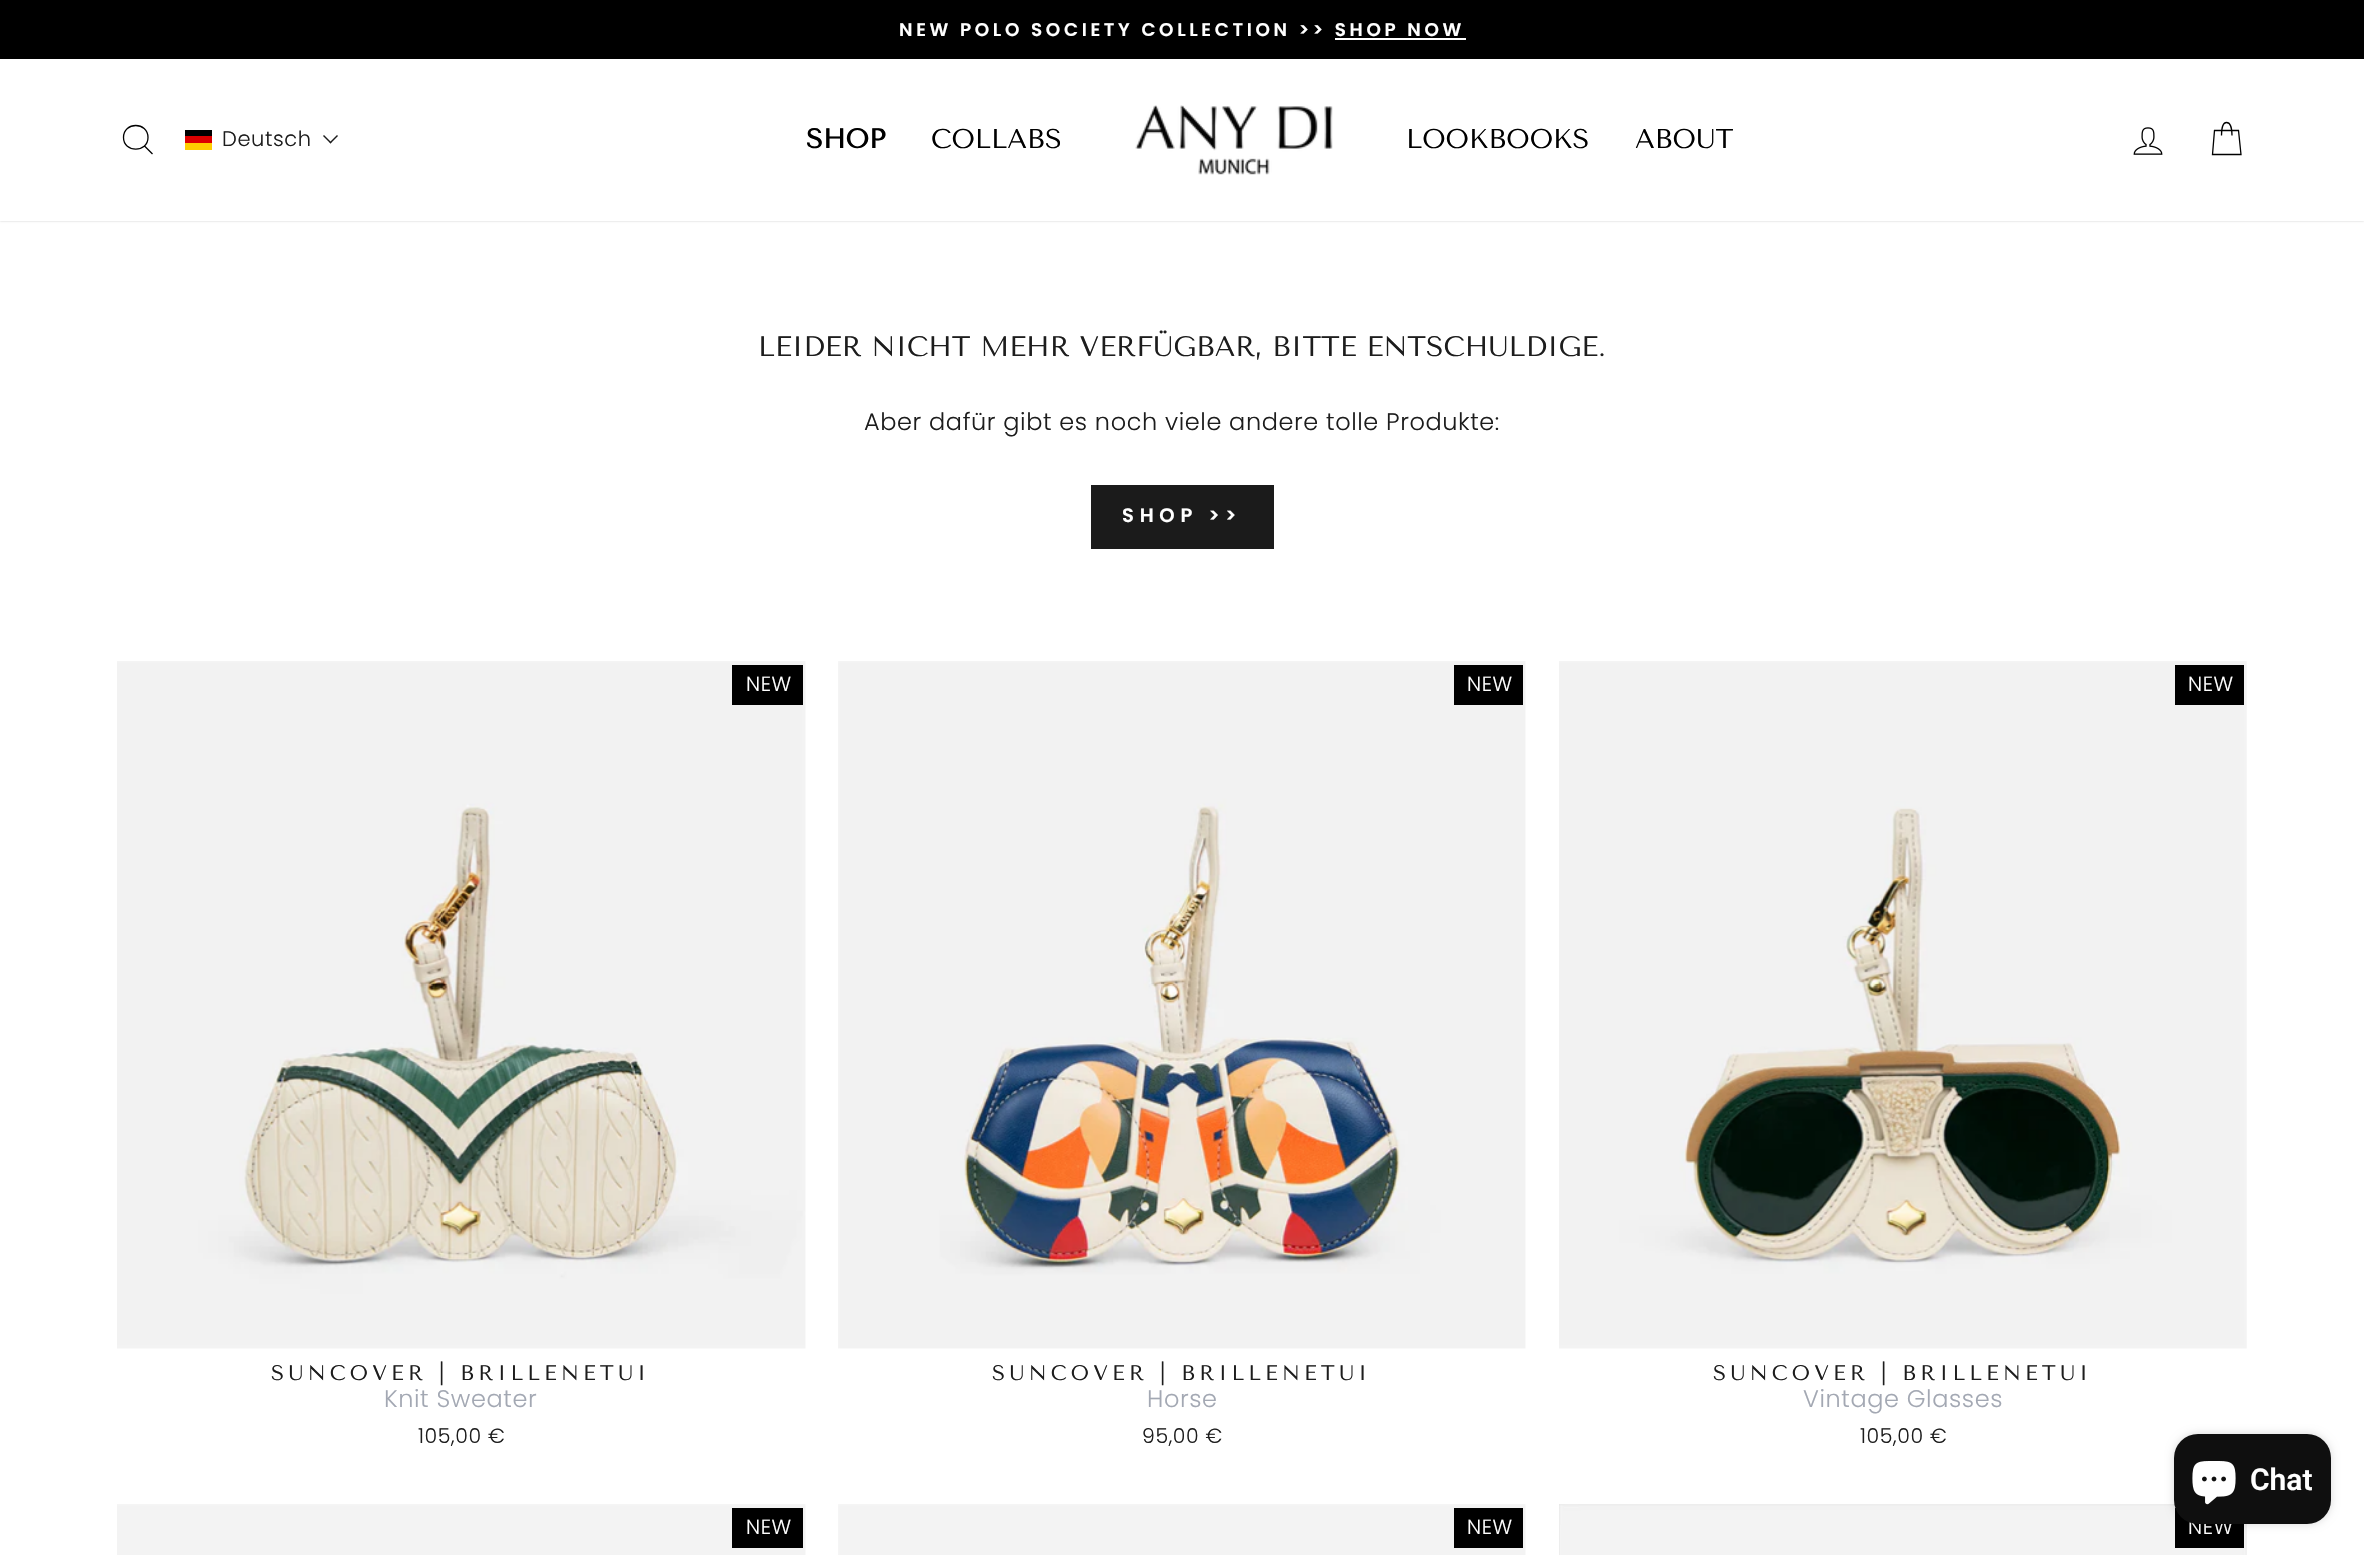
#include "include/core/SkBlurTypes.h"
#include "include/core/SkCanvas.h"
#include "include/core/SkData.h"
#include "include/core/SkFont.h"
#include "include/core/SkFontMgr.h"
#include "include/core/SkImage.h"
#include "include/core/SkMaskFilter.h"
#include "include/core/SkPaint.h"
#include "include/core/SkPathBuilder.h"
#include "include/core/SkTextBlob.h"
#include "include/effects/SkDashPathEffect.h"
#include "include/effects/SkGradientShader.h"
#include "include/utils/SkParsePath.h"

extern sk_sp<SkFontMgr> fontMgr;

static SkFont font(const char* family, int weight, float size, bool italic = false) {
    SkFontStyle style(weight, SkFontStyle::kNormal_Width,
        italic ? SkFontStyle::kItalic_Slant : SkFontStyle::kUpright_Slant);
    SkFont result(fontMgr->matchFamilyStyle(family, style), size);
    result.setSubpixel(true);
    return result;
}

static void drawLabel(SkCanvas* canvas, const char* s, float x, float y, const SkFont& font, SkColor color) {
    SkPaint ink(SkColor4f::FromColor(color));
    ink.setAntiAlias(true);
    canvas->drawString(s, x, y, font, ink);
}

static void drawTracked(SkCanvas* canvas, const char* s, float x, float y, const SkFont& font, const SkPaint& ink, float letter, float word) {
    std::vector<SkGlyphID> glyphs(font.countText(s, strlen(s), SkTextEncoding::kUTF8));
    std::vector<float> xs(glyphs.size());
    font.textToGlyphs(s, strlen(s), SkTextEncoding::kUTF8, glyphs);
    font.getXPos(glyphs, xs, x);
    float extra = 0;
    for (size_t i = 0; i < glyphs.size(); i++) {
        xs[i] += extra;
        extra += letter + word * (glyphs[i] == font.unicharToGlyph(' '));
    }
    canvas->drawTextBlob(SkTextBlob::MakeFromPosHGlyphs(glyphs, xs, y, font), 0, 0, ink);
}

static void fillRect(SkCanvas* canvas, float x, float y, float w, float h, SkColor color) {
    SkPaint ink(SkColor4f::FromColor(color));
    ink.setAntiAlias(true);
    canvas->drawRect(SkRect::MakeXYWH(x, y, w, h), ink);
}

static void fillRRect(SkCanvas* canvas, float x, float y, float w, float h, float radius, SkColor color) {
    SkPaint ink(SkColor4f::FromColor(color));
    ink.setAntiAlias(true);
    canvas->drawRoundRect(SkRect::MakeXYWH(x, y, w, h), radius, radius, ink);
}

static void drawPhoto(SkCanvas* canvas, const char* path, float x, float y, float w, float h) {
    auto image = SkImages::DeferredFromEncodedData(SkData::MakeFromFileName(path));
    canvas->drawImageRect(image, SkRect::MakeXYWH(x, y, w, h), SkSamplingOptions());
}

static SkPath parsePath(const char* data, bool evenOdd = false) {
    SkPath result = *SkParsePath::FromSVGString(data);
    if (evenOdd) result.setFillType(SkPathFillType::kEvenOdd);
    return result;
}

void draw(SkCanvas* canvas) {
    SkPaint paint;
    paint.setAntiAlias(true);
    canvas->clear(0xFFFFFFFF);
    fillRect(canvas, 0, 0, 2364, 59, 0xFF000000);
    SkFont font1 = font("Poppins", 600, 18.35f);
    paint.setColor(0xFFFFFFFF);
    drawTracked(canvas, "NEW POLO SOCIETY COLLECTION >> SHOP NOW", 899, 36, font1, paint, 3.65f, 0);
    fillRect(canvas, 1335, 38, 131, 2, 0xFFFFFFFF);
    paint.setColor(0x33000000);
    paint.setMaskFilter(SkMaskFilter::MakeBlur(kNormal_SkBlurStyle, 1));
    canvas->drawRect(SkRect::MakeXYWH(0, 59, 2364, 162), paint);
    paint.setMaskFilter(nullptr);
    fillRect(canvas, 0, 59, 2364, 162, 0xFFFFFFFF);
    paint.setStroke(true);
    paint.setStrokeWidth(1.3f);
    paint.setColor(0xFF000000);
    canvas->drawPath(parsePath("M148 137.5C148 153 123.5 153 123.5 137.5C123.5 121.5 148 121.5 148 137.5ZM152.5 154L144.5 146"), paint);
    fillRect(canvas, 185, 143, 27, 7, 0xFFFFCE00);
    fillRect(canvas, 185, 130, 27, 6, 0xFF000000);
    fillRect(canvas, 185, 136, 27, 7, 0xFFDD0000);
    SkFont font2 = font("Poppins", 300, 21);
    paint.setStroke(false);
    paint.setColor(0xFF1D1D1D);
    drawTracked(canvas, "Deutsch", 222, 146, font2, paint, 0.6f, 0);
    paint.setColor(0xFF1A1A1A);
    canvas->drawPath(parsePath("M337 135L338 136L330.5 143.5L329.5 142.5Z"), paint);
    canvas->drawPath(parsePath("M324 135L331.5 142.5L330.5 143.5L323 136Z"), paint);
    SkFont font3 = font("Tenor Sans", 700, 27);
    drawLabel(canvas, "SHOP", 806, 148, font3, 0xFF000000);
    SkFont font4 = font("Tenor Sans", 400, 27);
    drawLabel(canvas, "COLLABS", 931, 148, font4, 0xFF000000);
    drawPhoto(canvas, "assets/img1.png", 1135, 105, 198, 70);
    drawLabel(canvas, "LOOKBOOKS", 1406, 148, font4, 0xFF000000);
    drawLabel(canvas, "ABOUT", 1635, 148, font4, 0xFF000000);
    drawPhoto(canvas, "assets/img2.png", 2133, 127, 30, 28);
    paint.setStroke(true);
    paint.setColor(0xFF000000);
    canvas->drawPath(parsePath("M2221.5 135.5C2221.5 125 2223.5 122.5 2226.5 122.5C2229.5 122.5 2232 125 2232 135.5M2214.5 130.5H2238.5L2241 154.5H2212.5Z"), paint);
    SkFont font5 = font("Tenor Sans", 400, 28.05f);
    drawLabel(canvas, "LEIDER NICHT MEHR VERFÜGBAR, BITTE ENTSCHULDIGE.", 758, 356, font5, 0xFF1D1D1D);
    SkFont font6 = font("Poppins", 300, 24);
    paint.setStroke(false);
    paint.setColor(0xFF1D1D1D);
    drawTracked(canvas, "Aber dafür gibt es noch viele andere tolle Produkte:", 864, 430, font6, paint, 0.6f, 0);
    fillRect(canvas, 1091, 485, 183, 64, 0xFF1B1B1B);
    SkFont font7 = font("Poppins", 600, 19.5f);
    paint.setColor(0xFFFFFFFF);
    drawTracked(canvas, "SHOP >>", 1122, 522, font7, paint, 5.75f, 0);
    drawPhoto(canvas, "assets/img3.png", 117, 661, 689, 688);
    fillRect(canvas, 732, 665, 71, 40, 0xFF000000);
    SkFont font8 = font("Poppins", 300, 20.5f);
    drawTracked(canvas, "NEW", 746, 691, font8, paint, 0.6f, 0);
    SkFont font9 = font("Tenor Sans", 400, 21);
    paint.setColor(0xFF1D1D1D);
    drawTracked(canvas, "SUNCOVER | BRILLENETUI", 271, 1380, font9, paint, 4.2f, 0);
    paint.setColor(0xFFA3A8B3);
    drawTracked(canvas, "Knit Sweater", 384, 1407, font6, paint, 0.6f, 0);
    paint.setColor(0xFF1D1D1D);
    drawTracked(canvas, "105,00 €", 418, 1443, font8, paint, 0.6f, 0);
    drawPhoto(canvas, "assets/img4.png", 838, 661, 688, 688);
    fillRect(canvas, 1454, 665, 69, 40, 0xFF000000);
    paint.setColor(0xFFFFFFFF);
    drawTracked(canvas, "NEW", 1467, 691, font8, paint, 0.6f, 0);
    paint.setColor(0xFF1D1D1D);
    drawTracked(canvas, "SUNCOVER | BRILLENETUI", 992, 1380, font9, paint, 4.2f, 0);
    paint.setColor(0xFFA3A8B3);
    drawTracked(canvas, "Horse", 1147, 1407, font6, paint, 0.6f, 0);
    paint.setColor(0xFF1D1D1D);
    drawTracked(canvas, "95,00 €", 1142, 1443, font8, paint, 0.6f, 0);
    drawPhoto(canvas, "assets/img5.png", 1559, 661, 688, 688);
    fillRect(canvas, 2175, 665, 69, 40, 0xFF000000);
    paint.setColor(0xFFFFFFFF);
    drawTracked(canvas, "NEW", 2188, 691, font8, paint, 0.6f, 0);
    paint.setColor(0xFF1D1D1D);
    drawTracked(canvas, "SUNCOVER | BRILLENETUI", 1713, 1380, font9, paint, 4.2f, 0);
    paint.setColor(0xFFA3A8B3);
    drawTracked(canvas, "Vintage Glasses", 1803, 1407, font6, paint, 0.6f, 0);
    paint.setColor(0xFF1D1D1D);
    drawTracked(canvas, "105,00 €", 1860, 1443, font8, paint, 0.6f, 0);
    drawPhoto(canvas, "assets/img6.png", 117, 1504, 689, 51);
    fillRect(canvas, 732, 1508, 71, 40, 0xFF000000);
    paint.setColor(0xFFFFFFFF);
    drawTracked(canvas, "NEW", 746, 1534, font8, paint, 0.6f, 0);
    drawPhoto(canvas, "assets/img7.png", 838, 1504, 688, 51);
    fillRect(canvas, 1454, 1508, 69, 40, 0xFF000000);
    drawTracked(canvas, "NEW", 1467, 1534, font8, paint, 0.6f, 0);
    drawPhoto(canvas, "assets/img8.png", 1559, 1504, 688, 51);
    fillRect(canvas, 2175, 1508, 69, 40, 0xFF000000);
    drawTracked(canvas, "NEW", 2188, 1534, font8, paint, 0.6f, 0);
    paint.setColor(0x26000000);
    paint.setMaskFilter(SkMaskFilter::MakeBlur(kNormal_SkBlurStyle, 4));
    canvas->drawRoundRect(SkRect::MakeXYWH(2174, 1434, 157, 90), 24, 24, paint);
    paint.setMaskFilter(nullptr);
    fillRRect(canvas, 2174, 1434, 157, 90, 24, 0xFF0F0F0F);
    drawPhoto(canvas, "assets/img9.png", 2192, 1461, 44, 44);
    SkFont font10 = font("Roboto", 600, 30);
    drawLabel(canvas, "Chat", 2250, 1490, font10, 0xFFFFFFFF);
}
